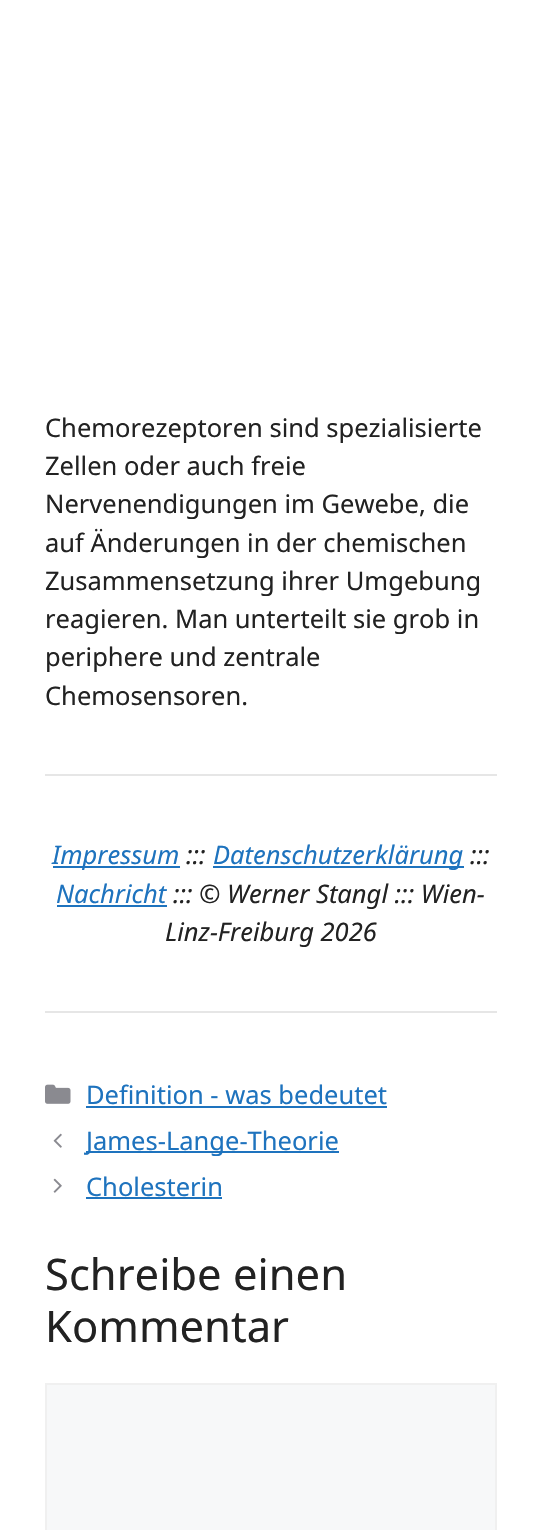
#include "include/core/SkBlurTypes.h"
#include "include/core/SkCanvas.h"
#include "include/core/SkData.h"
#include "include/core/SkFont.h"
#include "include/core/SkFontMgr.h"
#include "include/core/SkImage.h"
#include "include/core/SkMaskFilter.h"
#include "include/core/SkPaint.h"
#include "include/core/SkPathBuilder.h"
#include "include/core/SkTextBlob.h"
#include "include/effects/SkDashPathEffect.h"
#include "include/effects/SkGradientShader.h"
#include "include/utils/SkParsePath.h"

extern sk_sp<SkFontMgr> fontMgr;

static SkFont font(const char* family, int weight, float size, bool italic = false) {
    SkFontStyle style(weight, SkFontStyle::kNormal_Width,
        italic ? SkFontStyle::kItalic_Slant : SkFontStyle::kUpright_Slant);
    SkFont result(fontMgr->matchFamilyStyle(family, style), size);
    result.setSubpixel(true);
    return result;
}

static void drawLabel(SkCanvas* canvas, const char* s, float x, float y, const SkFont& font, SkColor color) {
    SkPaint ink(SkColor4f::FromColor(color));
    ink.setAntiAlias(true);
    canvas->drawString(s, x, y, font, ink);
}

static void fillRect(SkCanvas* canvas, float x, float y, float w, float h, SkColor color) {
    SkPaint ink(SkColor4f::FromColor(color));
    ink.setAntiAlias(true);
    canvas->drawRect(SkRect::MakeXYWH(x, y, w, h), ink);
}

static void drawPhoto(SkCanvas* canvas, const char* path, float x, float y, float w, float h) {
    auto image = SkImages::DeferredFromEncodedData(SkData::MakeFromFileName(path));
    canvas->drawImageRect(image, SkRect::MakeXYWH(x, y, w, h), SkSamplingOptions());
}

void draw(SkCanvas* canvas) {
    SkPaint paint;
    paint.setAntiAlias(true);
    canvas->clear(0xFFFFFFFF);
    SkFont font1 = font("Noto Sans", 400, 25.5f);
    drawLabel(canvas, "Chemorezeptoren sind spezialisierte", 45, 437, font1, 0xFF222222);
    drawLabel(canvas, "Zellen oder auch freie", 45, 475, font1, 0xFF222222);
    drawLabel(canvas, "Nervenendigungen im Gewebe, die", 45, 513, font1, 0xFF222222);
    drawLabel(canvas, "auf Änderungen in der chemischen", 45, 552, font1, 0xFF222222);
    drawLabel(canvas, "Zusammensetzung ihrer Umgebung", 45, 590, font1, 0xFF222222);
    drawLabel(canvas, "reagieren. Man unterteilt sie grob in", 45, 628, font1, 0xFF222222);
    drawLabel(canvas, "periphere und zentrale", 45, 666, font1, 0xFF222222);
    drawLabel(canvas, "Chemosensoren.", 45, 705, font1, 0xFF222222);
    fillRect(canvas, 45, 774, 452, 2, 0xFFE6E6E6);
    fillRect(canvas, 53, 866, 127, 2, 0xFF1E73BE);
    SkFont font2 = font("Noto Sans", 400, 25.5f, true);
    drawLabel(canvas, "Impressum", 52, 864, font2, 0xFF1E73BE);
    drawLabel(canvas, ":::", 186, 864, font2, 0xFF222222);
    fillRect(canvas, 213, 866, 251, 2, 0xFF1E73BE);
    drawLabel(canvas, "Datenschutzerklärung", 213, 864, font2, 0xFF1E73BE);
    drawLabel(canvas, ":::", 470, 864, font2, 0xFF222222);
    drawLabel(canvas, "Nachricht", 56, 903, font2, 0xFF1E73BE);
    fillRect(canvas, 57, 905, 110, 2, 0xFF1E73BE);
    drawLabel(canvas, "::: © Werner Stangl ::: Wien-", 173, 903, font2, 0xFF222222);
    drawLabel(canvas, "Linz-Freiburg 2026", 165, 941, font2, 0xFF222222);
    fillRect(canvas, 45, 1011, 452, 2, 0xFFE6E6E6);
    drawPhoto(canvas, "assets/img1.png", 45, 1084, 26, 20);
    drawLabel(canvas, "Definition - was bedeutet", 86, 1104, font1, 0xFF1E73BE);
    fillRect(canvas, 86, 1106, 301, 2, 0xFF1E73BE);
    drawPhoto(canvas, "assets/img2.png", 53, 1133, 9, 15);
    fillRect(canvas, 86, 1151, 253, 2, 0xFF1E73BE);
    drawLabel(canvas, "James-Lange-Theorie", 86, 1150, font1, 0xFF1E73BE);
    drawPhoto(canvas, "assets/img3.png", 53, 1178, 9, 15);
    drawLabel(canvas, "Cholesterin", 86, 1196, font1, 0xFF1E73BE);
    fillRect(canvas, 86, 1197, 136, 2, 0xFF1E73BE);
    SkFont font3 = font("Noto Sans", 400, 43.5f);
    drawLabel(canvas, "Schreibe einen", 45, 1290, font3, 0xFF222222);
    drawLabel(canvas, "Kommentar", 45, 1342, font3, 0xFF222222);
    paint.setColor(0xFFF7F8F9);
    canvas->drawRect(SkRect::MakeXYWH(46, 1384, 450, 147), paint);
    paint.setStroke(true);
    paint.setStrokeWidth(2);
    paint.setColor(0xFFF0F0F0);
    canvas->drawRect(SkRect::MakeXYWH(46, 1384, 450, 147), paint);
}
